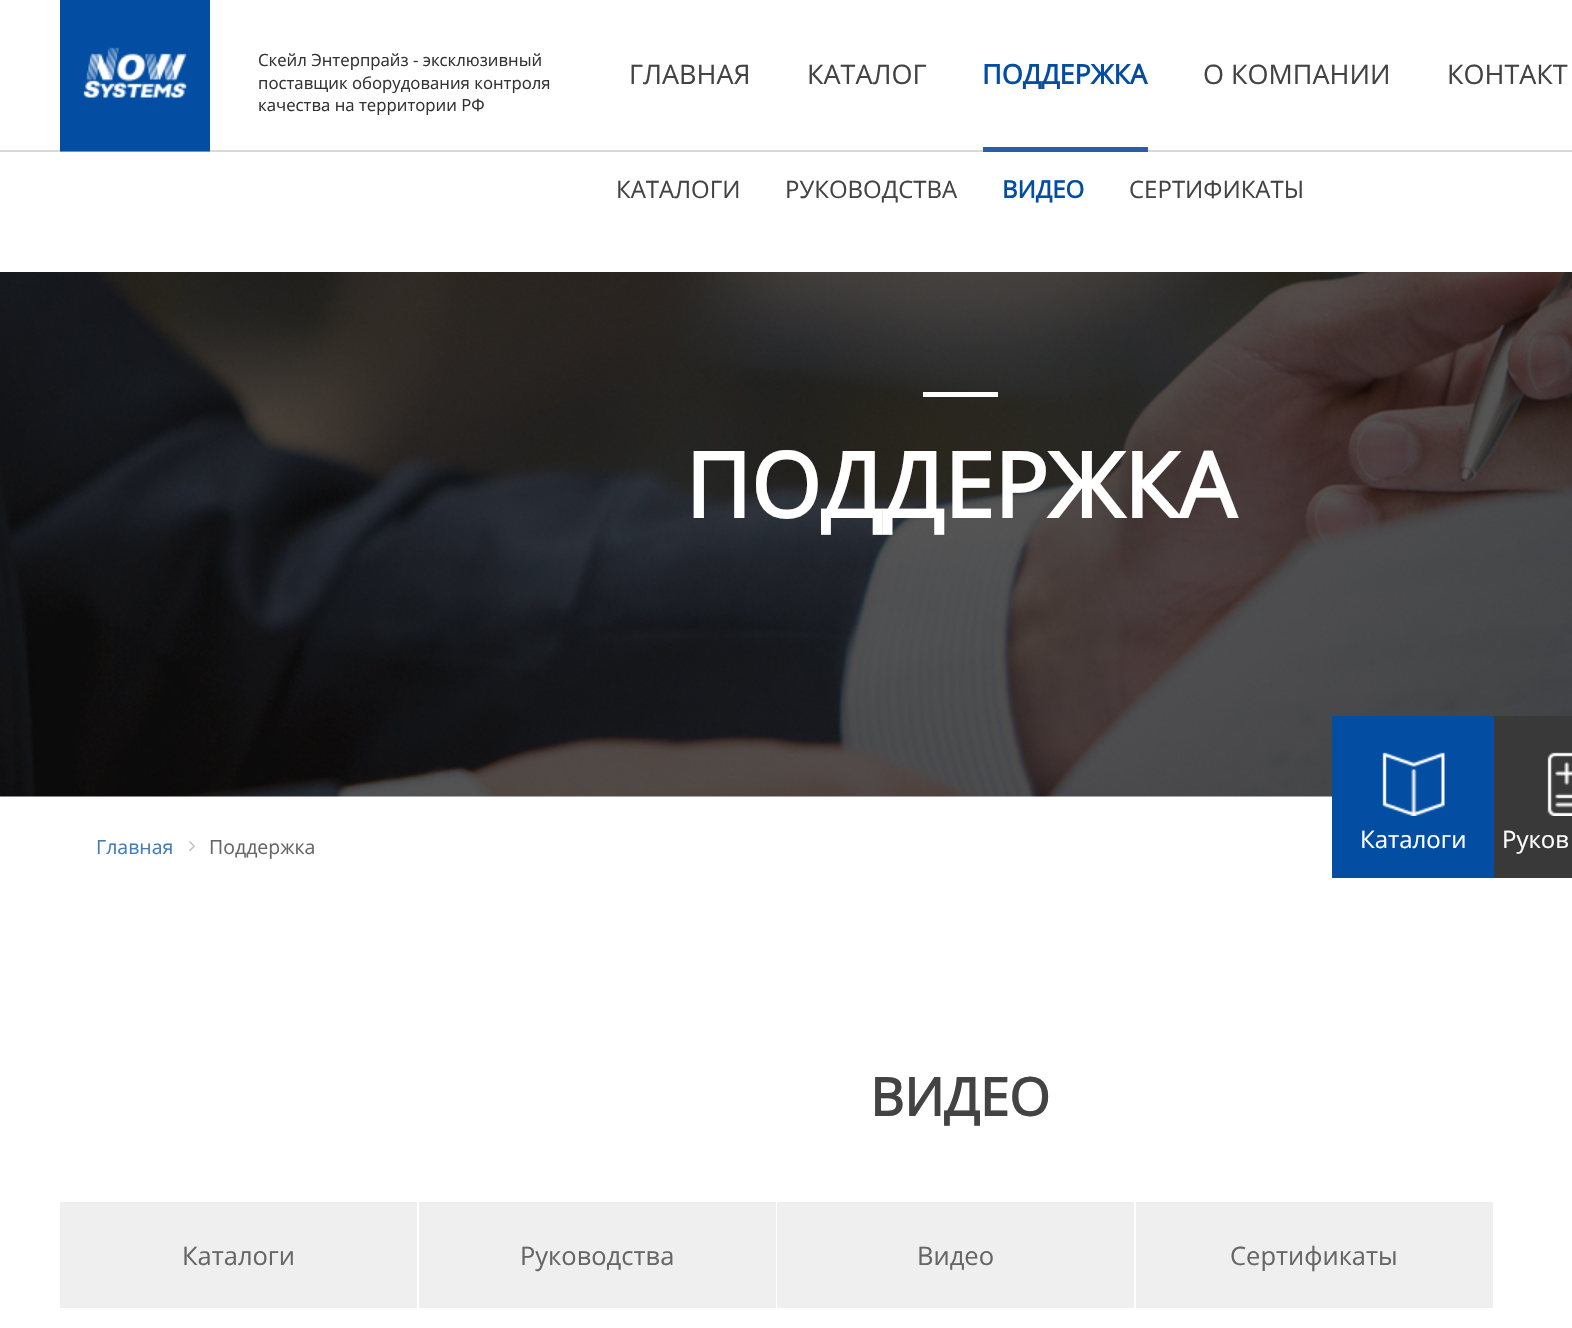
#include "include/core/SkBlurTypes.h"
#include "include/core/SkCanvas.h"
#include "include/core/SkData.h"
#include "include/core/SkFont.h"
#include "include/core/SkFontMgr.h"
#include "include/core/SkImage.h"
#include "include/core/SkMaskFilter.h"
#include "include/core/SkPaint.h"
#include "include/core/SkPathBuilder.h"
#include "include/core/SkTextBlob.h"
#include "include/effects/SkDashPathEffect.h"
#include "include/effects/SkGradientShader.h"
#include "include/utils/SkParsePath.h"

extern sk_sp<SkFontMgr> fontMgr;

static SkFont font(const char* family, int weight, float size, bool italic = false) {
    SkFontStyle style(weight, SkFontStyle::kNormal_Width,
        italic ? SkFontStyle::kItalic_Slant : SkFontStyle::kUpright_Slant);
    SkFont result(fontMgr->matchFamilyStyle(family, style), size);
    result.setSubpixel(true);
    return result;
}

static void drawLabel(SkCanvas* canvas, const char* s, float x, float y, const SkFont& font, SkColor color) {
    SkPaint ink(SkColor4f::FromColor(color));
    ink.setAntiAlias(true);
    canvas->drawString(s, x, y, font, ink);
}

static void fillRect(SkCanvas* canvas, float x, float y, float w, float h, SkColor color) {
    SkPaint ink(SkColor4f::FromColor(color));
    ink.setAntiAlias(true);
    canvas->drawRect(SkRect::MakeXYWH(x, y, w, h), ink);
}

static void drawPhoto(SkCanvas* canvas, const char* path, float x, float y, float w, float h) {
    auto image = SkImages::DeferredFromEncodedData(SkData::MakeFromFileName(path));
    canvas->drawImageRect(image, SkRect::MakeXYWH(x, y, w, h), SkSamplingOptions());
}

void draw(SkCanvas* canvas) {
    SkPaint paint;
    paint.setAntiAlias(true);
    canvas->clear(0xFFFFFFFF);
    fillRect(canvas, 0, 150, 1572, 2, 0xFFD9D9D9);
    drawPhoto(canvas, "assets/img1.png", 60, 0, 150, 152);
    SkFont font1 = font("Open Sans", 400, 16.75f);
    drawLabel(canvas, "Скейл Энтерпрайз - эксклюзивный", 258, 66, font1, 0xFF333333);
    drawLabel(canvas, "поставщик оборудования контроля", 258, 89, font1, 0xFF333333);
    drawLabel(canvas, "качества на территории РФ", 258, 111, font1, 0xFF333333);
    fillRect(canvas, 983, 147, 165, 5, 0xFF295FA9);
    SkFont font2 = font("Open Sans", 700, 27);
    drawLabel(canvas, "ПОДДЕРЖКА", 982, 84, font2, 0xFF034EA2);
    SkFont font3 = font("Open Sans", 400, 24);
    drawLabel(canvas, "КАТАЛОГИ", 616, 198, font3, 0xFF434343);
    drawLabel(canvas, "РУКОВОДСТВА", 785, 198, font3, 0xFF434343);
    SkFont font4 = font("Open Sans", 700, 24);
    drawLabel(canvas, "ВИДЕО", 1002, 198, font4, 0xFF034EA2);
    drawLabel(canvas, "СЕРТИФИКАТЫ", 1129, 198, font3, 0xFF434343);
    SkFont font5 = font("Open Sans", 400, 27);
    drawLabel(canvas, "ГЛАВНАЯ", 629, 84, font5, 0xFF434343);
    drawLabel(canvas, "КАТАЛОГ", 807, 84, font5, 0xFF434343);
    drawLabel(canvas, "О КОМПАНИИ", 1203, 84, font5, 0xFF434343);
    drawLabel(canvas, "КОНТАКТ", 1447, 84, font5, 0xFF434343);
    drawPhoto(canvas, "assets/img2.png", 0, 272, 1572, 525);
    fillRect(canvas, 923, 392, 75, 5, 0xFFFFFFFF);
    SkFont font6 = font("Open Sans", 700, 90);
    drawLabel(canvas, "ПОДДЕРЖКА", 685, 518, font6, 0xFFFFFFFF);
    SkFont font7 = font("Open Sans", 400, 19.5f);
    drawLabel(canvas, "Главная", 96, 854, font7, 0xFF407CB7);
    drawPhoto(canvas, "assets/img3.png", 189, 841, 6, 11);
    drawLabel(canvas, "Поддержка", 209, 854, font7, 0xFF666666);
    fillRect(canvas, 1332, 716, 162, 162, 0xFF034EA2);
    drawPhoto(canvas, "assets/img4.png", 1382, 752, 63, 64);
    drawLabel(canvas, "Каталоги", 1360, 848, font3, 0xFFFFFFFF);
    fillRect(canvas, 1494, 716, 78, 162, 0xFF393939);
    drawPhoto(canvas, "assets/img5.png", 1547, 752, 25, 64);
    drawLabel(canvas, "Руков", 1502, 848, font3, 0xFFFFFFFF);
    SkFont font8 = font("Open Sans", 700, 52.5f);
    drawLabel(canvas, "ВИДЕО", 870, 1116, font8, 0xFF434343);
    fillRect(canvas, 60, 1202, 357, 106, 0xFFEFEFEF);
    SkFont font9 = font("Open Sans", 400, 25.5f);
    drawLabel(canvas, "Каталоги", 182, 1265, font9, 0xFF666666);
    fillRect(canvas, 419, 1202, 357, 106, 0xFFEFEFEF);
    drawLabel(canvas, "Руководства", 520, 1265, font9, 0xFF666666);
    fillRect(canvas, 777, 1202, 357, 106, 0xFFEFEFEF);
    drawLabel(canvas, "Видео", 917, 1265, font9, 0xFF666666);
    fillRect(canvas, 1136, 1202, 357, 106, 0xFFEFEFEF);
    drawLabel(canvas, "Сертификаты", 1230, 1265, font9, 0xFF666666);
}
